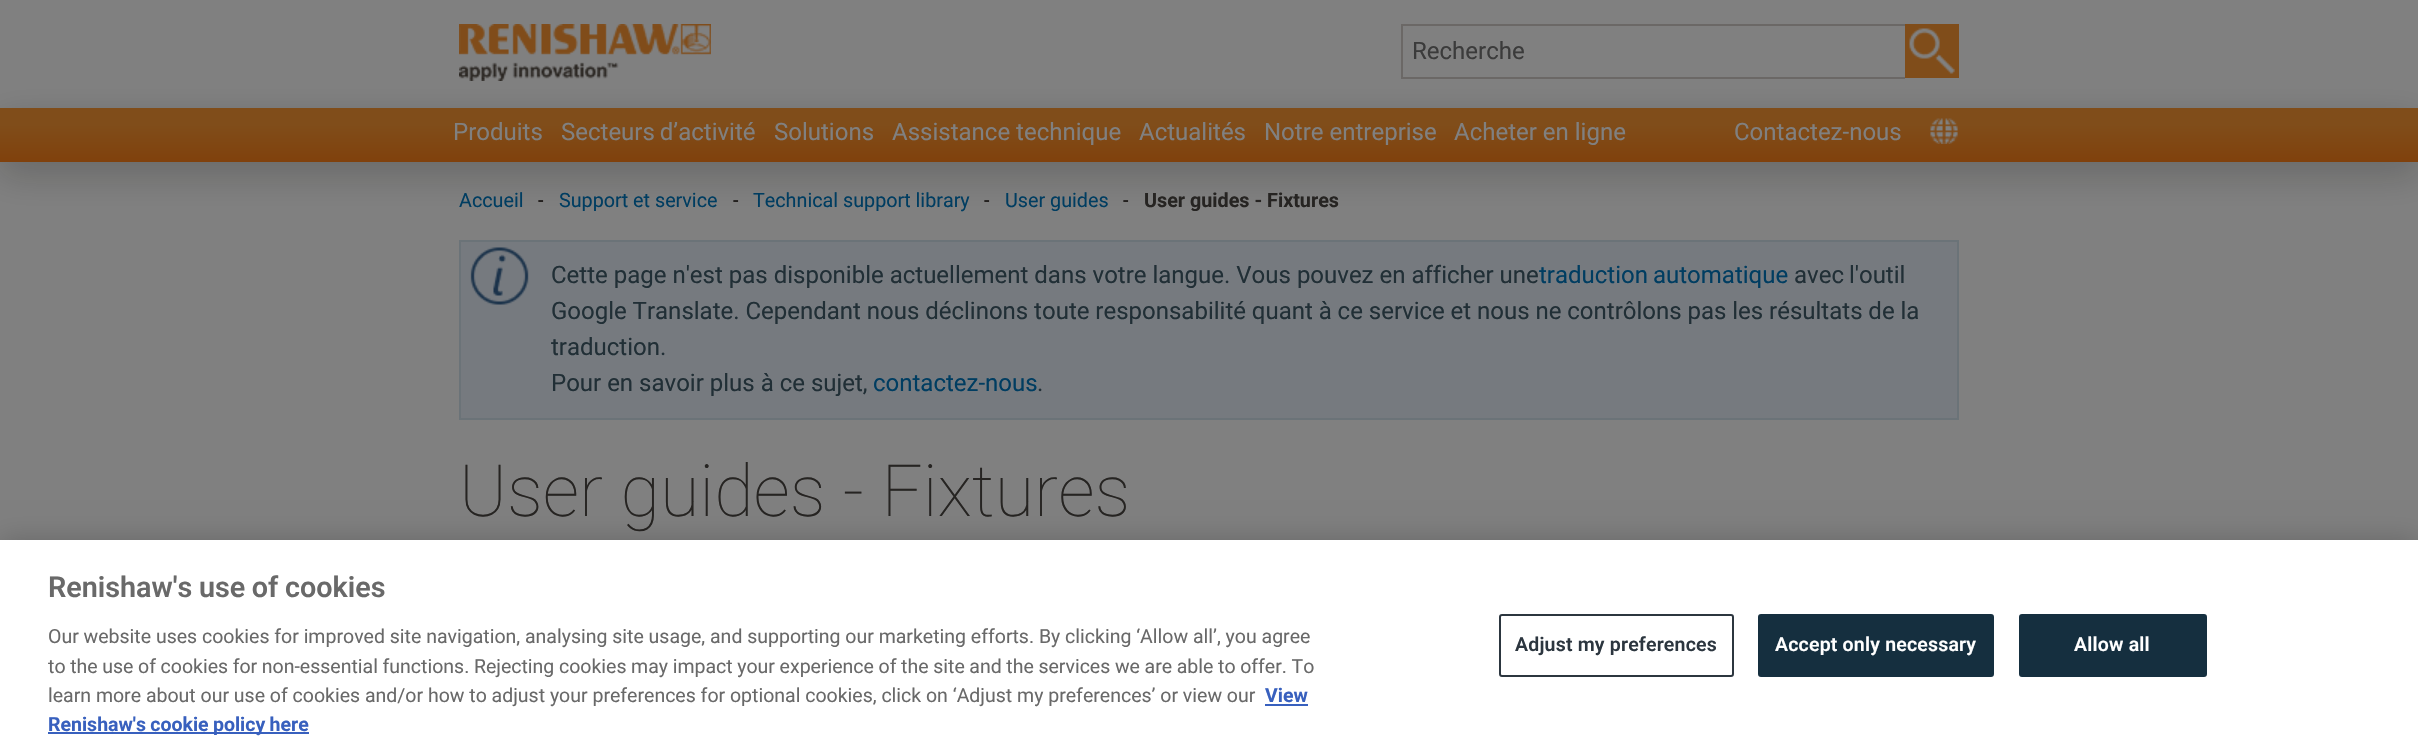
#include "include/core/SkBlurTypes.h"
#include "include/core/SkCanvas.h"
#include "include/core/SkData.h"
#include "include/core/SkFont.h"
#include "include/core/SkFontMgr.h"
#include "include/core/SkImage.h"
#include "include/core/SkMaskFilter.h"
#include "include/core/SkPaint.h"
#include "include/core/SkPathBuilder.h"
#include "include/core/SkTextBlob.h"
#include "include/effects/SkDashPathEffect.h"
#include "include/effects/SkGradientShader.h"
#include "include/utils/SkParsePath.h"

extern sk_sp<SkFontMgr> fontMgr;

static SkFont font(const char* family, int weight, float size, bool italic = false) {
    SkFontStyle style(weight, SkFontStyle::kNormal_Width,
        italic ? SkFontStyle::kItalic_Slant : SkFontStyle::kUpright_Slant);
    SkFont result(fontMgr->matchFamilyStyle(family, style), size);
    result.setSubpixel(true);
    return result;
}

static void drawLabel(SkCanvas* canvas, const char* s, float x, float y, const SkFont& font, SkColor color) {
    SkPaint ink(SkColor4f::FromColor(color));
    ink.setAntiAlias(true);
    canvas->drawString(s, x, y, font, ink);
}

static void drawTracked(SkCanvas* canvas, const char* s, float x, float y, const SkFont& font, const SkPaint& ink, float letter, float word) {
    std::vector<SkGlyphID> glyphs(font.countText(s, strlen(s), SkTextEncoding::kUTF8));
    std::vector<float> xs(glyphs.size());
    font.textToGlyphs(s, strlen(s), SkTextEncoding::kUTF8, glyphs);
    font.getXPos(glyphs, xs, x);
    float extra = 0;
    for (size_t i = 0; i < glyphs.size(); i++) {
        xs[i] += extra;
        extra += letter + word * (glyphs[i] == font.unicharToGlyph(' '));
    }
    canvas->drawTextBlob(SkTextBlob::MakeFromPosHGlyphs(glyphs, xs, y, font), 0, 0, ink);
}

static void fillRect(SkCanvas* canvas, float x, float y, float w, float h, SkColor color) {
    SkPaint ink(SkColor4f::FromColor(color));
    ink.setAntiAlias(true);
    canvas->drawRect(SkRect::MakeXYWH(x, y, w, h), ink);
}

static void drawPhoto(SkCanvas* canvas, const char* path, float x, float y, float w, float h) {
    auto image = SkImages::DeferredFromEncodedData(SkData::MakeFromFileName(path));
    canvas->drawImageRect(image, SkRect::MakeXYWH(x, y, w, h), SkSamplingOptions());
}

void draw(SkCanvas* canvas) {
    SkPaint paint;
    paint.setAntiAlias(true);
    canvas->clear(0xFF808080);
    paint.setColor(0x33110D0B);
    paint.setMaskFilter(SkMaskFilter::MakeBlur(kNormal_SkBlurStyle, 18));
    canvas->drawRect(SkRect::MakeXYWH(-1, 119, 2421, 57), paint);
    paint.setMaskFilter(nullptr);
    drawPhoto(canvas, "assets/img1.png", 459, 24, 252, 57);
    fillRect(canvas, 1401, 24, 504, 2, 0xFF6B6866);
    fillRect(canvas, 1401, 77, 504, 2, 0xFF6B6866);
    fillRect(canvas, 1401, 24, 2, 54, 0xFF6B6866);
    SkFont font1 = font("Roboto", 400, 24);
    drawLabel(canvas, "Recherche", 1412, 59, font1, 0xFF3B3B3B);
    fillRect(canvas, 1907, 26, 50, 50, 0xFF804D1A);
    drawPhoto(canvas, "assets/img2.png", 1909, 28, 46, 46);
    paint.setStroke(true);
    paint.setStrokeWidth(2);
    paint.setColor(0xFF804D1A);
    canvas->drawRect(SkRect::MakeXYWH(1906, 25, 52, 52), paint);
    paint.setStroke(false);
    {
        const SkColor colors[] = {0xFF804D1A, 0xFF804D1A, 0xFF80410C};
        const float stops[] = {0, 0.3f, 1};
        const SkPoint ends[] = {{1209, 108}, {1209, 162}};
        paint.setShader(SkGradientShader::MakeLinear(ends, colors, stops, 3, SkTileMode::kClamp));
        paint.setAlpha(255);
    }
    canvas->drawRect(SkRect::MakeXYWH(0, 108, 2418, 54), paint);
    drawLabel(canvas, "Produits", 453, 140, font1, 0xFF808080);
    paint.setShader(nullptr);
    paint.setColor(0xFF808080);
    drawTracked(canvas, "Secteurs d’activité", 561, 140, font1, paint, 0, -1);
    drawLabel(canvas, "Solutions", 774, 140, font1, 0xFF808080);
    drawLabel(canvas, "Assistance technique", 892, 140, font1, 0xFF808080);
    drawLabel(canvas, "Actualités", 1139, 140, font1, 0xFF808080);
    drawLabel(canvas, "Notre entreprise", 1264, 140, font1, 0xFF808080);
    drawLabel(canvas, "Acheter en ligne", 1454, 140, font1, 0xFF808080);
    drawLabel(canvas, "Contactez-nous", 1734, 140, font1, 0xFF808080);
    drawPhoto(canvas, "assets/img3.png", 1930, 118, 28, 26);
    SkFont font2 = font("Roboto", 400, 19.75f);
    drawLabel(canvas, "Accueil", 459, 207, font2, 0xFF003D61);
    drawLabel(canvas, "-", 538, 207, font2, 0xFF110D0B);
    drawLabel(canvas, "Support et service", 559, 207, font2, 0xFF003D61);
    drawLabel(canvas, "-", 733, 207, font2, 0xFF110D0B);
    drawLabel(canvas, "Technical support library", 753, 207, font2, 0xFF003D61);
    drawLabel(canvas, "-", 984, 207, font2, 0xFF110D0B);
    drawLabel(canvas, "User guides", 1005, 207, font2, 0xFF003D61);
    drawLabel(canvas, "-", 1123, 207, font2, 0xFF110D0B);
    SkFont font3 = font("Roboto", 700, 19.75f);
    drawLabel(canvas, "User guides - Fixtures", 1144, 207, font3, 0xFF262422);
    fillRect(canvas, 461, 242, 1496, 176, 0xFF767A7F);
    drawPhoto(canvas, "assets/img4.png", 470, 247, 59, 58);
    paint.setStroke(true);
    paint.setColor(0xFF6B7378);
    canvas->drawRect(SkRect::MakeXYWH(460, 241, 1498, 178), paint);
    drawLabel(canvas, "Cette page n'est pas disponible actuellement dans votre langue. Vous pouvez en afficher une", 551, 283, font1, 0xFF212F36);
    paint.setStroke(false);
    paint.setColor(0xFF003D61);
    drawTracked(canvas, "traduction automatique", 1539, 283, font1, paint, 0, -1);
    paint.setColor(0xFF212F36);
    drawTracked(canvas, "avec l'outil", 1794, 283, font1, paint, 0, -1);
    drawTracked(canvas, "Google Translate. Cependant nous déclinons toute responsabilité quant à ce service et nous ne contrôlons pas les résultats de la", 551, 319, font1, paint, 0, -0.1f);
    drawLabel(canvas, "traduction.", 551, 355, font1, 0xFF212F36);
    drawLabel(canvas, "Pour en savoir plus à ce sujet,", 551, 391, font1, 0xFF212F36);
    drawLabel(canvas, "contactez-nous", 873, 391, font1, 0xFF003D61);
    drawLabel(canvas, ".", 1037, 391, font1, 0xFF212F36);
    SkFont font4 = font("Roboto", 100, 72);
    drawLabel(canvas, "User guides - Fixtures", 459, 516, font4, 0xFF262422);
    paint.setColor(0x33000000);
    paint.setMaskFilter(SkMaskFilter::MakeBlur(kNormal_SkBlurStyle, 13.5f));
    canvas->drawRect(SkRect::MakeXYWH(0, 540, 2418, 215), paint);
    paint.setMaskFilter(nullptr);
    fillRect(canvas, 0, 540, 2418, 214, 0xFFFFFFFF);
    SkFont font5 = font("Roboto", 600, 28.75f);
    paint.setColor(0xFF696969);
    drawTracked(canvas, "Renishaw's use of cookies", 48, 597, font5, paint, 0, -0.5f);
    SkFont font6 = font("Roboto", 400, 19.5f);
    drawLabel(canvas, "Our website uses cookies for improved site navigation, analysing site usage, and supporting our marketing efforts. By clicking ‘Allow all’, you agree", 48, 643, font6, 0xFF696969);
    drawTracked(canvas, "to the use of cookies for non-essential functions. Rejecting cookies may impact your experience of the site and the services we are able to offer. To", 48, 673, font6, paint, 0, -0.2f);
    drawLabel(canvas, "learn more about our use of cookies and/or how to adjust your preferences for optional cookies, click on ‘Adjust my preferences’ or view our", 48, 702, font6, 0xFF696969);
    SkFont font7 = font("Roboto", 700, 19.5f);
    drawLabel(canvas, "View", 1265, 702, font7, 0xFF3860BE);
    fillRect(canvas, 1265, 704, 43, 2, 0xFF3860BE);
    fillRect(canvas, 48, 732, 261, 2, 0xFF3860BE);
    paint.setColor(0xFF3860BE);
    drawTracked(canvas, "Renishaw's cookie policy here", 48, 731, font7, paint, 0, -0.5f);
    paint.setStroke(true);
    paint.setColor(0xFF2C363F);
    canvas->drawRoundRect(SkRect::MakeXYWH(1500, 615, 233, 61), 2, 2, paint);
    SkFont font8 = font("Roboto", 600, 19.5f);
    paint.setStroke(false);
    drawTracked(canvas, "Adjust my preferences", 1515, 651, font8, paint, 0.2f, 0);
    paint.setColor(0xFF152F3F);
    canvas->drawRoundRect(SkRect::MakeXYWH(1759, 615, 234, 61), 2, 2, paint);
    paint.setStroke(true);
    canvas->drawRoundRect(SkRect::MakeXYWH(1759, 615, 234, 61), 2, 2, paint);
    paint.setStroke(false);
    paint.setColor(0xFFFFFFFF);
    drawTracked(canvas, "Accept only necessary", 1775, 651, font8, paint, 0.2f, 0);
    paint.setColor(0xFF152F3F);
    canvas->drawRoundRect(SkRect::MakeXYWH(2020, 615, 186, 61), 2, 2, paint);
    paint.setStroke(true);
    canvas->drawRoundRect(SkRect::MakeXYWH(2020, 615, 186, 61), 2, 2, paint);
    paint.setStroke(false);
    paint.setColor(0xFFFFFFFF);
    drawTracked(canvas, "Allow all", 2074, 651, font8, paint, 0.2f, 0);
}
